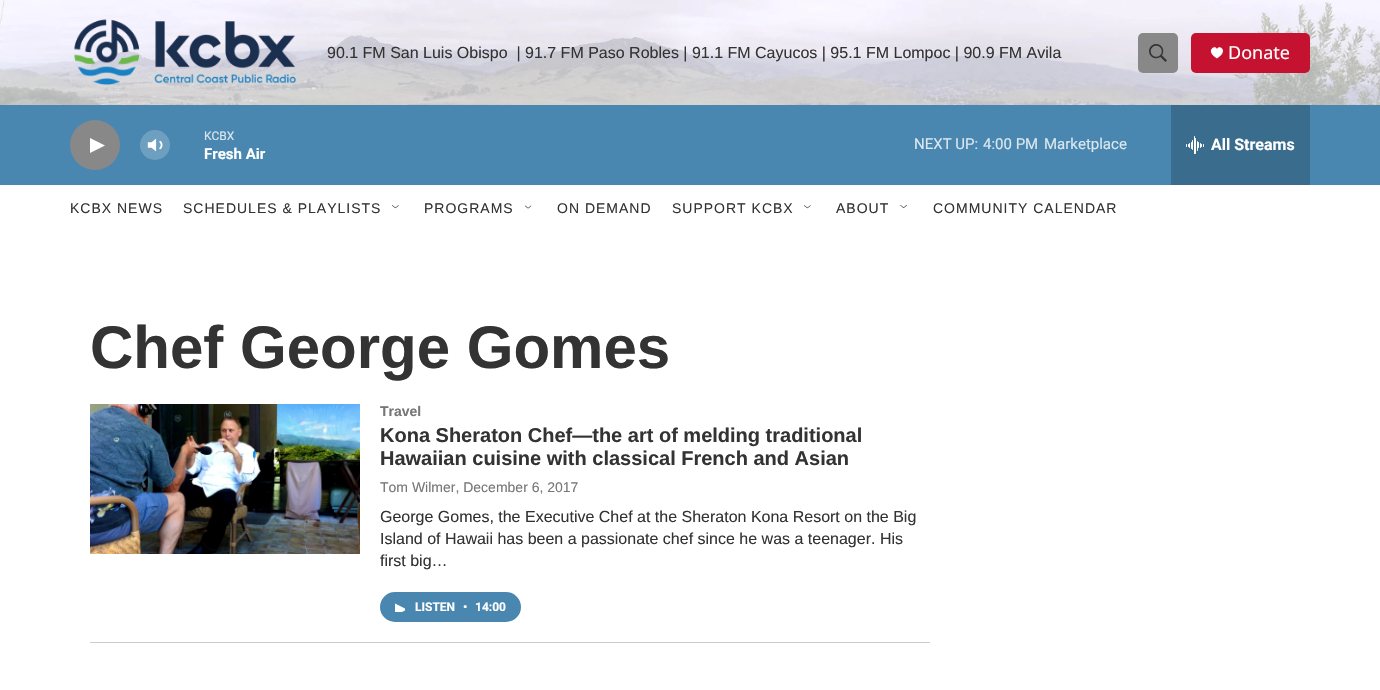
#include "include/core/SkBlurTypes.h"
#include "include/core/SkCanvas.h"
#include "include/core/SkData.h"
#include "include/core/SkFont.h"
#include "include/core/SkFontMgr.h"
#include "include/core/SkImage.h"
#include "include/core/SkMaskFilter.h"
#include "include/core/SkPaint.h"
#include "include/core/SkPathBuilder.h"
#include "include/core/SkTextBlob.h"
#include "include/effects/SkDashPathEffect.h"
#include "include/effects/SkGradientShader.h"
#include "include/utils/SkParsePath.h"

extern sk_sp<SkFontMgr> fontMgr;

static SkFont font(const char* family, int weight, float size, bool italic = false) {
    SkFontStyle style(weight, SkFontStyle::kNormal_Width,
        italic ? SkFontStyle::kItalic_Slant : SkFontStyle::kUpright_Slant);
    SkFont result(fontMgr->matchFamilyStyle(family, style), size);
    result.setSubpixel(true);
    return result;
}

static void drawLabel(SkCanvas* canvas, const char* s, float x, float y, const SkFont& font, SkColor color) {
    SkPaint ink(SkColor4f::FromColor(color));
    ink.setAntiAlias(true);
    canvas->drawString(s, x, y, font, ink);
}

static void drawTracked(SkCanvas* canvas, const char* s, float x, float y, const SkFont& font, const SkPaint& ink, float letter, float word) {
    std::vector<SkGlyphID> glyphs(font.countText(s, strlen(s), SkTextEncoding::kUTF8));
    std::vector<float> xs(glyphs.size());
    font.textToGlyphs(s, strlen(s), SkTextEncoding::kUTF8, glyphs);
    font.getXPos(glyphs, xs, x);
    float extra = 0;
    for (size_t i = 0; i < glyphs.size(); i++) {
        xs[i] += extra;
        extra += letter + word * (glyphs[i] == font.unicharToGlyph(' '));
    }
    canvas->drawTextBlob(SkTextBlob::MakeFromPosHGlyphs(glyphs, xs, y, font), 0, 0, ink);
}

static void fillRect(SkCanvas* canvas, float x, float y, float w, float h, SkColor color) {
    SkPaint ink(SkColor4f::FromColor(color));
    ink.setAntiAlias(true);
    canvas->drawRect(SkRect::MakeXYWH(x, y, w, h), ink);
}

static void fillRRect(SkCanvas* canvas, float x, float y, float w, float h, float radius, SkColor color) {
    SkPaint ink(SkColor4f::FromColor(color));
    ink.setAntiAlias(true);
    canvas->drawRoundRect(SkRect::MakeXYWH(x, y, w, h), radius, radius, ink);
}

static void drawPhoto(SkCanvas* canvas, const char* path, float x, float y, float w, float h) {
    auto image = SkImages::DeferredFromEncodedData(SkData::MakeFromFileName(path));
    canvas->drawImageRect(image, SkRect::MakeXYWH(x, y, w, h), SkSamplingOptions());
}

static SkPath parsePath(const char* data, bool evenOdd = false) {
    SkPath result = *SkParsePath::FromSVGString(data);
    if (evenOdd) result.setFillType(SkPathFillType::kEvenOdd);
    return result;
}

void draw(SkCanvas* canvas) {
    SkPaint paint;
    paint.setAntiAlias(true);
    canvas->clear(0xFFFFFFFF);
    drawPhoto(canvas, "assets/img1.png", 0, 0, 1380, 105);
    drawPhoto(canvas, "assets/img2.png", 74, 19, 222, 66);
    SkFont font1 = font("Liberation Sans", 400, 16);
    drawLabel(canvas, "90.1 FM San Luis Obispo  | 91.7 FM Paso Robles | 91.1 FM Cayucos | 95.1 FM Lompoc | 90.9 FM Avila", 327, 58, font1, 0xFF333333);
    fillRRect(canvas, 1138, 33, 40, 40, 5, 0xFF888888);
    drawPhoto(canvas, "assets/img3.png", 1149, 44, 18, 18);
    fillRRect(canvas, 1191, 33, 119, 40, 5, 0xFFC41230);
    paint.setColor(0xFFFFFFFF);
    canvas->drawPath(parsePath("M1217 49C1215 44 1204.5 51 1217 58.5C1229.5 51 1219 44 1217 49Z"), paint);
    SkFont font2 = font("Noto Sans", 400, 18);
    drawLabel(canvas, "Donate", 1228, 59, font2, 0xFFFFFFFF);
    fillRect(canvas, 0, 105, 1380, 80, 0xFF4987B0);
    paint.setColor(0xFF888888);
    canvas->drawCircle(95, 145, 25, paint);
    paint.setColor(0xFFFFFFFF);
    canvas->drawPath(parsePath("M90 138L105 145.5L90 153Z"), paint);
    drawPhoto(canvas, "assets/img4.png", 147, 138, 16, 14);
    paint.setColor(0x33FFFFFF);
    canvas->drawCircle(155, 145, 15, paint);
    SkFont font3 = font("Roboto", 400, 12);
    drawLabel(canvas, "KCBX", 204, 140, font3, 0xFFDBE7EF);
    SkFont font4 = font("Roboto", 700, 15);
    drawLabel(canvas, "Fresh Air", 204, 159, font4, 0xFFFFFFFF);
    SkFont font5 = font("Roboto", 400, 15);
    drawLabel(canvas, "NEXT UP:", 914, 149, font5, 0xFFDBE7EF);
    drawLabel(canvas, "4:00 PM", 983, 149, font5, 0xFFDBE7EF);
    drawLabel(canvas, "Marketplace", 1044, 149, font5, 0xFFDBE7EF);
    fillRect(canvas, 1171, 105, 139, 80, 0xFF3A6C8D);
    drawPhoto(canvas, "assets/img5.png", 1186, 136, 18, 18);
    SkFont font6 = font("Roboto", 700, 16);
    drawLabel(canvas, "All Streams", 1211, 150, font6, 0xFFFFFFFF);
    SkFont font7 = font("Liberation Sans", 400, 14);
    paint.setColor(0xFF333333);
    drawTracked(canvas, "KCBX NEWS", 70, 213, font7, paint, 1, 0);
    drawTracked(canvas, "SCHEDULES & PLAYLISTS", 183, 213, font7, paint, 1, 0);
    drawPhoto(canvas, "assets/img6.png", 392, 205, 7, 4);
    drawTracked(canvas, "PROGRAMS", 424, 213, font7, paint, 1, 0);
    drawPhoto(canvas, "assets/img7.png", 524, 205, 8, 4);
    drawTracked(canvas, "ON DEMAND", 557, 213, font7, paint, 1, 0);
    drawTracked(canvas, "SUPPORT KCBX", 672, 213, font7, paint, 1, 0);
    drawPhoto(canvas, "assets/img8.png", 804, 205, 7, 4);
    drawTracked(canvas, "ABOUT", 836, 213, font7, paint, 1, 0);
    drawPhoto(canvas, "assets/img9.png", 900, 205, 7, 3);
    drawTracked(canvas, "COMMUNITY CALENDAR", 933, 213, font7, paint, 1, 0);
    SkFont font8 = font("Liberation Sans", 700, 60);
    drawLabel(canvas, "Chef George Gomes", 90, 368, font8, 0xFF333333);
    fillRect(canvas, 90, 642, 840, 1, 0xFFCCCCCC);
    drawPhoto(canvas, "assets/img10.png", 90, 404, 270, 150);
    SkFont font9 = font("Liberation Sans", 700, 14);
    drawLabel(canvas, "Travel", 380, 416, font9, 0xFF767676);
    SkFont font10 = font("Liberation Sans", 700, 20);
    drawLabel(canvas, "Kona Sheraton Chef—the art of melding traditional", 380, 442, font10, 0xFF333333);
    drawLabel(canvas, "Hawaiian cuisine with classical French and Asian", 380, 465, font10, 0xFF333333);
    drawLabel(canvas, "Tom Wilmer, December 6, 2017", 380, 492, font7, 0xFF767676);
    drawLabel(canvas, "George Gomes, the Executive Chef at the Sheraton Kona Resort on the Big", 380, 522, font1, 0xFF333333);
    drawLabel(canvas, "Island of Hawaii has been a passionate chef since he was a teenager. His", 380, 544, font1, 0xFF333333);
    drawLabel(canvas, "first big…", 380, 566, font1, 0xFF333333);
    fillRRect(canvas, 380, 592, 141, 30, 15, 0xFF4987B0);
    canvas->save();
    canvas->clipRect(SkRect::MakeXYWH(395, 602, 10, 10));
    paint.setColor(0xFFFFFFFF);
    canvas->drawPath(parsePath("M395 603.5L407 609.5L395 615.5Z"), paint);
    canvas->restore();
    SkFont font11 = font("Roboto", 700, 12);
    drawLabel(canvas, "LISTEN", 415, 611, font11, 0xFFFFFFFF);
    drawLabel(canvas, "•", 463, 611, font11, 0xFFFFFFFF);
    drawLabel(canvas, "14:00", 475, 611, font11, 0xFFFFFFFF);
}
